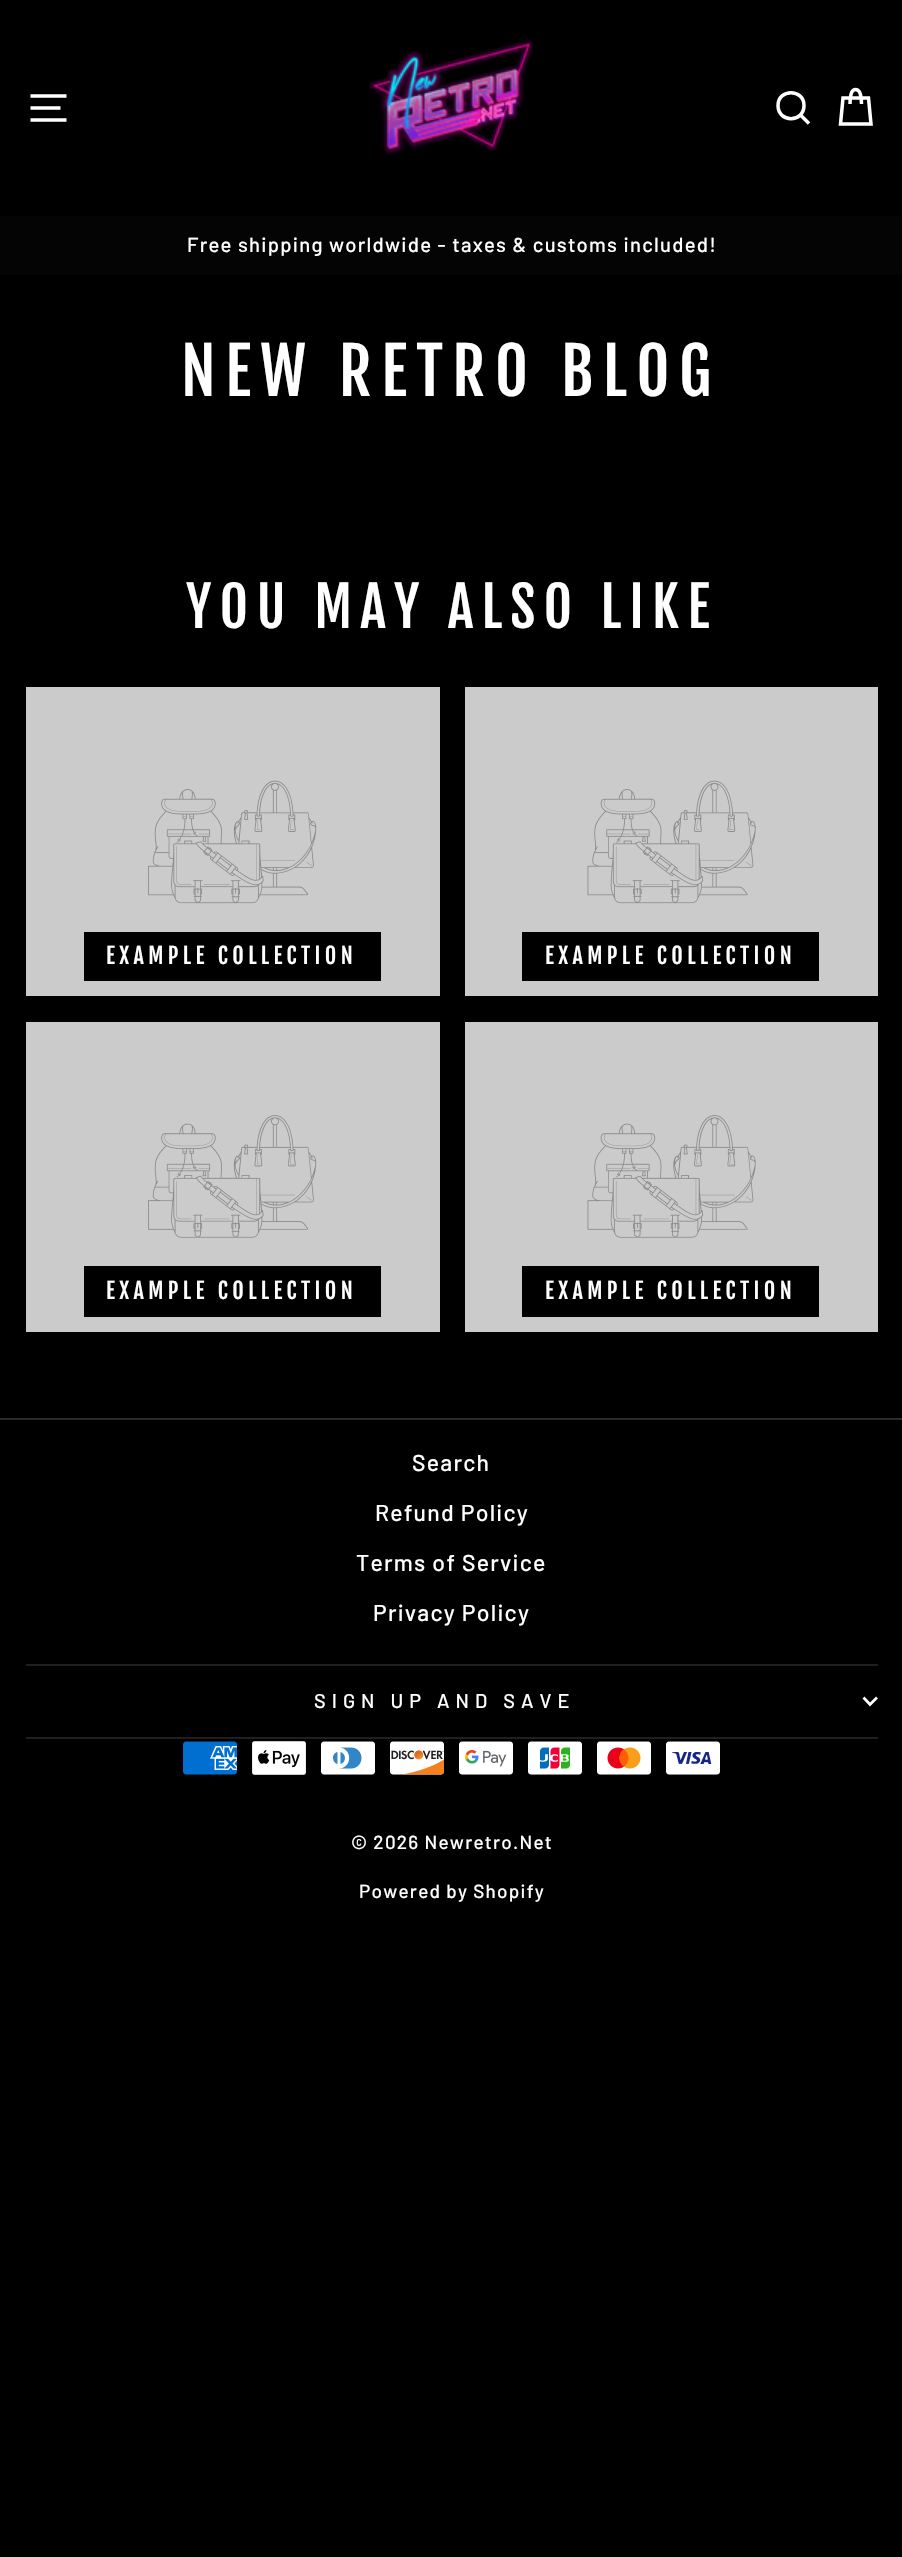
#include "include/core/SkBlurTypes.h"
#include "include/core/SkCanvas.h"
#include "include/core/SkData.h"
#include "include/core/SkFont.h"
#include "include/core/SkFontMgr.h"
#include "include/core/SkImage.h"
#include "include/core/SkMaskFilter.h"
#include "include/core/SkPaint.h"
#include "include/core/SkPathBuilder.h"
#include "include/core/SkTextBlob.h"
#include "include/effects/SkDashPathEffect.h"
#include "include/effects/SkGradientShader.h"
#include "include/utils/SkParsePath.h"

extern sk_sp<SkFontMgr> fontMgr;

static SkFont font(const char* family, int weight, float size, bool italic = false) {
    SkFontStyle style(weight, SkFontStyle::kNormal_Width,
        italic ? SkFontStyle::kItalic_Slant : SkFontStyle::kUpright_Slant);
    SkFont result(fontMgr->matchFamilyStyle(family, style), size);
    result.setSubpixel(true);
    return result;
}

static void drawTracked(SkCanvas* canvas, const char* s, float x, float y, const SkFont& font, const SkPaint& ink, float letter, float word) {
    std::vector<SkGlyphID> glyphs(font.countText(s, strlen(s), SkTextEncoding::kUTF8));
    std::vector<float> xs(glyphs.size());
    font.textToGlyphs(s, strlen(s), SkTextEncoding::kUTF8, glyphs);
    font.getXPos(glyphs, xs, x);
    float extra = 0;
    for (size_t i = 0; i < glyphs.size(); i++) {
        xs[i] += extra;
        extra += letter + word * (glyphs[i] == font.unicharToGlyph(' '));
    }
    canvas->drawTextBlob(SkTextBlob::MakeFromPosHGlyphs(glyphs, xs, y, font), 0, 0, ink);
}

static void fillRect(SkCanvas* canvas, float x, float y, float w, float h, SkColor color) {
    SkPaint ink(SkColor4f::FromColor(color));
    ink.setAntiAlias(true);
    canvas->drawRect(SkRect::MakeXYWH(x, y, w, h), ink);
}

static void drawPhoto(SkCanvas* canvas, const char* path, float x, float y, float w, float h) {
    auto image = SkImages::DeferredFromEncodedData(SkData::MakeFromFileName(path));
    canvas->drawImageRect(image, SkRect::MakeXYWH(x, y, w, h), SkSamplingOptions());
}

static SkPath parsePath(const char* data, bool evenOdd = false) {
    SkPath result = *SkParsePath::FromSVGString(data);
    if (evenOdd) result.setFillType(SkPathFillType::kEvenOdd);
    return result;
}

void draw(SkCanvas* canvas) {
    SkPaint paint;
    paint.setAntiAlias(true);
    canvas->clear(0xFF000000);
    paint.setStroke(true);
    paint.setStrokeWidth(3.5f);
    paint.setColor(0xFFFFFFFF);
    canvas->drawPath(parsePath("M30.5 96H66.5M30.5 108H60.5M30.5 120H66.5"), paint);
    drawPhoto(canvas, "assets/img1.png", 369, 39, 165, 116);
    canvas->drawPath(parsePath("M804 105.5C804 123 778 123 778 105.5C778 88.5 804 88.5 804 105.5ZM809 123.5L800.5 115"), paint);
    canvas->drawPath(parsePath("M850 104C850 92.5 852.5 89.5 855.5 89.5C859 89.5 861.5 92.5 861.5 104M843 98H868.5L871 124H840.5Z"), paint);
    fillRect(canvas, 0, 216, 902, 59, 0xFF040404);
    SkFont font1 = font("Barlow", 500, 20.25f);
    paint.setStroke(false);
    drawTracked(canvas, "Free shipping worldwide - taxes & customs included!", 187, 252, font1, paint, 1.25f, 0);
    SkFont font2 = font("Fjalla One", 400, 63.75f);
    drawTracked(canvas, "NEW RETRO BLOG", 181, 396, font2, paint, 9.5f, 0);
    SkFont font3 = font("Fjalla One", 400, 54.75f);
    drawTracked(canvas, "YOU MAY ALSO LIKE", 186, 628, font3, paint, 8.25f, 0);
    fillRect(canvas, 26, 687, 414, 309, 0xFFCBCBCB);
    drawPhoto(canvas, "assets/img2.png", 148, 780, 169, 124);
    fillRect(canvas, 84, 932, 297, 49, 0xFF000000);
    SkFont font4 = font("Fjalla One", 400, 22);
    drawTracked(canvas, "EXAMPLE COLLECTION", 106, 964, font4, paint, 4.4f, 0);
    fillRect(canvas, 465, 687, 413, 309, 0xFFCBCBCB);
    drawPhoto(canvas, "assets/img3.png", 587, 780, 169, 124);
    fillRect(canvas, 522, 932, 297, 49, 0xFF000000);
    drawTracked(canvas, "EXAMPLE COLLECTION", 545, 964, font4, paint, 4.4f, 0);
    fillRect(canvas, 26, 1022, 414, 310, 0xFFCBCBCB);
    drawPhoto(canvas, "assets/img4.png", 148, 1115, 169, 123);
    fillRect(canvas, 84, 1266, 297, 51, 0xFF000000);
    drawTracked(canvas, "EXAMPLE COLLECTION", 106, 1299, font4, paint, 4.4f, 0);
    fillRect(canvas, 465, 1022, 413, 310, 0xFFCBCBCB);
    drawPhoto(canvas, "assets/img5.png", 587, 1115, 169, 123);
    fillRect(canvas, 522, 1266, 297, 51, 0xFF000000);
    drawTracked(canvas, "EXAMPLE COLLECTION", 545, 1299, font4, paint, 4.4f, 0);
    fillRect(canvas, 0, 1418, 902, 2, 0xFF2B2A27);
    SkFont font5 = font("Barlow", 500, 23);
    drawTracked(canvas, "Search", 412, 1471, font5, paint, 1.25f, 0);
    drawTracked(canvas, "Refund Policy", 375, 1521, font5, paint, 1.25f, 0);
    drawTracked(canvas, "Terms of Service", 356, 1571, font5, paint, 1.25f, 0);
    drawTracked(canvas, "Privacy Policy", 373, 1621, font5, paint, 1.25f, 0);
    fillRect(canvas, 26, 1664, 852, 2, 0xFF1F1F1F);
    SkFont font6 = font("Barlow", 500, 19.9f);
    drawTracked(canvas, "SIGN UP AND SAVE", 314, 1708, font6, paint, 6, 0);
    paint.setStroke(true);
    paint.setStrokeWidth(2.7f);
    canvas->drawPath(parsePath("M863.5 1697.5L870 1704.5L877 1697.5"), paint);
    fillRect(canvas, 26, 1737, 852, 2, 0xFF1F1F1F);
    drawPhoto(canvas, "assets/img6.png", 183, 1741, 54, 34);
    drawPhoto(canvas, "assets/img7.png", 252, 1741, 54, 34);
    drawPhoto(canvas, "assets/img8.png", 321, 1741, 54, 34);
    drawPhoto(canvas, "assets/img9.png", 390, 1741, 55, 34);
    drawPhoto(canvas, "assets/img10.png", 459, 1741, 54, 34);
    drawPhoto(canvas, "assets/img11.png", 528, 1741, 54, 34);
    drawPhoto(canvas, "assets/img12.png", 597, 1741, 54, 34);
    drawPhoto(canvas, "assets/img13.png", 666, 1741, 54, 34);
    SkFont font7 = font("Barlow", 500, 18.9f);
    paint.setStroke(false);
    drawTracked(canvas, "© 2026 Newretro.Net", 351, 1849, font7, paint, 1.25f, 0);
    drawTracked(canvas, "Powered by Shopify", 359, 1898, font7, paint, 1.25f, 0);
}
